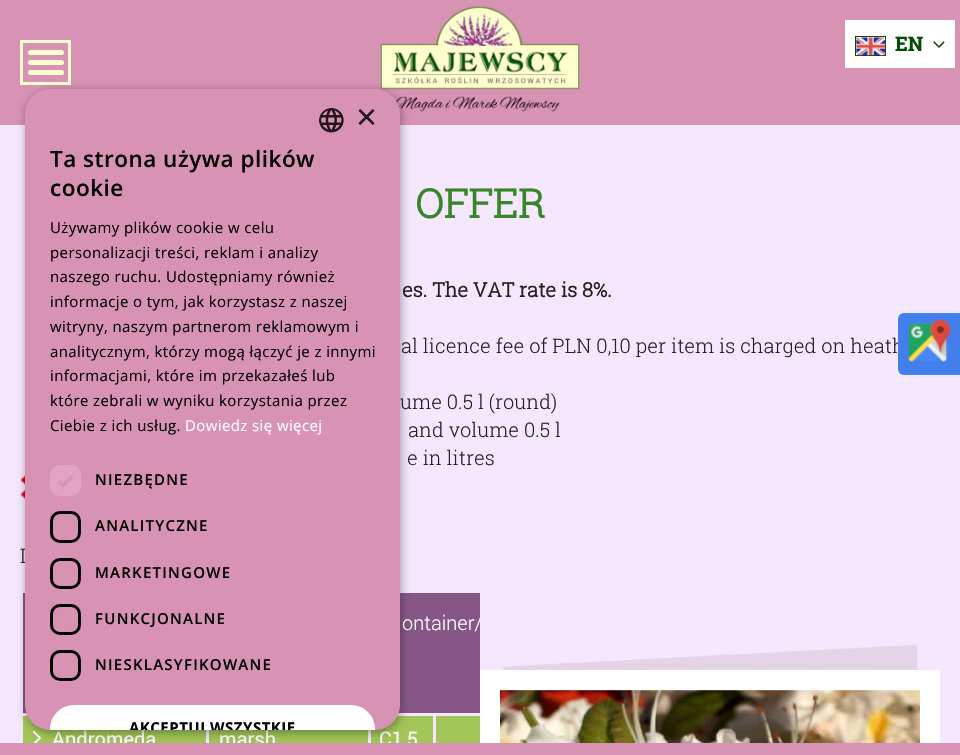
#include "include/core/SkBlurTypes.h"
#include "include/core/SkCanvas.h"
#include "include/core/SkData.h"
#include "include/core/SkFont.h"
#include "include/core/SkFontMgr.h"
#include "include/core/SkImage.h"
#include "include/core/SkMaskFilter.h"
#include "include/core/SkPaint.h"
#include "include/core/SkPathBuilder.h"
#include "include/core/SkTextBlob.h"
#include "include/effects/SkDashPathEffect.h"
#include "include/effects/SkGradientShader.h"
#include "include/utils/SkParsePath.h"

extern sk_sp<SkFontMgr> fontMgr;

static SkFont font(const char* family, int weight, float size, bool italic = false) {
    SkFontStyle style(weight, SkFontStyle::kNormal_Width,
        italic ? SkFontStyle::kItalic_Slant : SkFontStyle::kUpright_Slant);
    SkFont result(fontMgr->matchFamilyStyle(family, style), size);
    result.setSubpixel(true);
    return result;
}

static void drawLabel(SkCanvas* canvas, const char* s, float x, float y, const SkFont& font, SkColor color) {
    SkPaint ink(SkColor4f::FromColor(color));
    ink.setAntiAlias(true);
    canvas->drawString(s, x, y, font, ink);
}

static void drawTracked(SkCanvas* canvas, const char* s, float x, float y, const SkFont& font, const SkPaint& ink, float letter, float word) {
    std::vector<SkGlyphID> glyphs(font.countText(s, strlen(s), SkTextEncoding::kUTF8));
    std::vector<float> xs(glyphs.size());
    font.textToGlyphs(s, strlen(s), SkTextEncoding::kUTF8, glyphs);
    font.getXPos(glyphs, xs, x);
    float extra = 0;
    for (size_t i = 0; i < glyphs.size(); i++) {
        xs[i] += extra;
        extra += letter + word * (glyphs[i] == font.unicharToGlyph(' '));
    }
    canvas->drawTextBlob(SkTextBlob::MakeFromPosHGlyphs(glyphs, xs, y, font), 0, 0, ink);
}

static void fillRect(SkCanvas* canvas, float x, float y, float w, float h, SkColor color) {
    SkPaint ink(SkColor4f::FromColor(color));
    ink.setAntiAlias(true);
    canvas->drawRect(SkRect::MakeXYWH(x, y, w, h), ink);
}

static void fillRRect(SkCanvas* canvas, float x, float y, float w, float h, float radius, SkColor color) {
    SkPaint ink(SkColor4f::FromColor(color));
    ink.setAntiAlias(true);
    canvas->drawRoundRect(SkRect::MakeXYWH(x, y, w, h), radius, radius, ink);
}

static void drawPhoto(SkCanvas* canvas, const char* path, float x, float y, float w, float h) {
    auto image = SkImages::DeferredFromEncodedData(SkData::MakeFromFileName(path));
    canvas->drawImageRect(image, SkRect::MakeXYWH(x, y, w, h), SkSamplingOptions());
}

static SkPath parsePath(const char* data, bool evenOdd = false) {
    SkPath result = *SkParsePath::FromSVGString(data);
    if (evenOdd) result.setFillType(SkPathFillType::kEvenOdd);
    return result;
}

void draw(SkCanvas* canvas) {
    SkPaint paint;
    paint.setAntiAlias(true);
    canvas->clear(0xFFF5E8FE);
    fillRect(canvas, 0, 0, 960, 125, 0xFFD892B4);
    paint.setStroke(true);
    paint.setStrokeWidth(3);
    paint.setColor(0xFFFEFECE);
    canvas->drawRect(SkRect::MakeXYWH(21.5f, 41.5f, 48, 42), paint);
    fillRRect(canvas, 28, 50, 36, 5, 2.5f, 0xFFFEFECE);
    fillRRect(canvas, 28, 60, 36, 5, 2.5f, 0xFFFEFECE);
    fillRRect(canvas, 28, 70, 36, 5, 2.5f, 0xFFFEFECE);
    drawPhoto(canvas, "assets/img1.png", 380, 6, 200, 106);
    fillRect(canvas, 845, 20, 110, 48, 0xFFFFFFFF);
    paint.setStrokeWidth(1);
    paint.setColor(0xFF004D02);
    canvas->drawRect(SkRect::MakeXYWH(855.5f, 36.5f, 30, 19), paint);
    SkFont font1 = font("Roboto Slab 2", 700, 20);
    drawLabel(canvas, "EN", 895, 51, font1, 0xFF004D02);
    drawPhoto(canvas, "assets/img2.png", 856, 37, 30, 19);
    drawPhoto(canvas, "assets/img3.png", 933, 41, 12, 7);
    drawPhoto(canvas, "assets/img5.png", 20, 475, 5, 24);
    fillRect(canvas, 23, 593, 4, 120, 0xFF865786);
    fillRect(canvas, 398, 593, 82, 120, 0xFF865786);
    fillRect(canvas, 23, 716, 183, 27, 0xFFA2C658);
    drawPhoto(canvas, "assets/img6.png", 32, 730, 10, 13);
    fillRect(canvas, 209, 730, 159, 13, 0xFFA2C658);
    fillRect(canvas, 371, 716, 62, 27, 0xFFA2C658);
    SkFont font2 = font("roboto", 400, 20);
    drawLabel(canvas, "Andromeda", 52, 746, font2, 0xFFFFFFFF);
    drawLabel(canvas, "marsh", 219, 746, font2, 0xFFFFFFFF);
    drawLabel(canvas, "C1,5", 379, 746, font2, 0xFFFFFFFF);
    fillRect(canvas, 0, 743, 960, 12, 0xFFD892B4);
    paint.setStroke(false);
    paint.setColor(0x59000000);
    paint.setMaskFilter(SkMaskFilter::MakeBlur(kNormal_SkBlurStyle, 5));
    canvas->drawRoundRect(SkRect::MakeXYWH(26, 91, 375, 642), 25, 25, paint);
    paint.setMaskFilter(nullptr);
    SkFont font3 = font("Roboto Slab", 300, 20);
    drawLabel(canvas, "L", 20, 563, font3, 0xFF222222);
    fillRRect(canvas, 25, 89, 375, 641, 25, 0xFFD892B4);
    drawPhoto(canvas, "assets/img4.png", 319, 108, 25, 25);
    SkFont font4 = font("Liberation Sans", 400, 36);
    drawLabel(canvas, "×", 356, 129, font4, 0xFF20161B);
    SkFont font5 = font("Open Sans", 600, 22.5f);
    paint.setColor(0xFF000000);
    drawTracked(canvas, "Ta strona używa plików", 50, 167, font5, paint, 0.5f, 0);
    drawTracked(canvas, "cookie", 50, 196, font5, paint, 0.5f, 0);
    SkFont font6 = font("Open Sans", 400, 15);
    drawTracked(canvas, "Używamy plików cookie w celu", 50, 233, font6, paint, 0.4f, 0);
    drawTracked(canvas, "personalizacji treści, reklam i analizy", 50, 258, font6, paint, 0.4f, 0);
    drawTracked(canvas, "naszego ruchu. Udostępniamy również", 50, 282, font6, paint, 0.4f, 0);
    drawTracked(canvas, "informacje o tym, jak korzystasz z naszej", 50, 307, font6, paint, 0.4f, 0);
    drawTracked(canvas, "witryny, naszym partnerom reklamowym i", 50, 332, font6, paint, 0.4f, 0);
    drawTracked(canvas, "analitycznym, którzy mogą łączyć je z innymi", 50, 357, font6, paint, 0.4f, 0);
    drawTracked(canvas, "informacjami, które im przekazałeś lub", 50, 381, font6, paint, 0.4f, 0);
    drawTracked(canvas, "które zebrali w wyniku korzystania przez", 50, 406, font6, paint, 0.4f, 0);
    drawTracked(canvas, "Ciebie z ich usług.", 50, 431, font6, paint, 0.4f, 0);
    paint.setColor(0xFFFFFFFF);
    drawTracked(canvas, "Dowiedz się więcej", 185, 431, font6, paint, 0.4f, 0);
    fillRRect(canvas, 50, 465, 31, 31, 10, 0xFFE0A3C1);
    paint.setStroke(true);
    paint.setStrokeWidth(3.3f);
    paint.setColor(0xFFD892B4);
    canvas->drawPath(parsePath("M58.5 481.5L63 485.5L72.5 476"), paint);
    SkFont font7 = font("Open Sans", 600, 15);
    paint.setStroke(false);
    paint.setColor(0xFF000000);
    drawTracked(canvas, "NIEZBĘDNE", 95, 485, font7, paint, 1.25f, 0);
    paint.setStroke(true);
    paint.setStrokeWidth(3);
    canvas->drawRoundRect(SkRect::MakeXYWH(51.5f, 512.5f, 28, 29), 8.5f, 8.5f, paint);
    paint.setStroke(false);
    drawTracked(canvas, "ANALITYCZNE", 95, 531, font7, paint, 1.25f, 0);
    paint.setStroke(true);
    canvas->drawRoundRect(SkRect::MakeXYWH(51.5f, 559.5f, 28, 28), 8.5f, 8.5f, paint);
    paint.setStroke(false);
    drawTracked(canvas, "MARKETINGOWE", 95, 578, font7, paint, 1.25f, 0);
    paint.setStroke(true);
    canvas->drawRoundRect(SkRect::MakeXYWH(51.5f, 605.5f, 28, 28), 8.5f, 8.5f, paint);
    paint.setStroke(false);
    drawTracked(canvas, "FUNKCJONALNE", 95, 624, font7, paint, 1.25f, 0);
    paint.setStroke(true);
    canvas->drawRoundRect(SkRect::MakeXYWH(51.5f, 651.5f, 28, 28), 8.5f, 8.5f, paint);
    paint.setStroke(false);
    drawTracked(canvas, "NIESKLASYFIKOWANE", 95, 670, font7, paint, 1.25f, 0);
    canvas->save();
    canvas->clipPath(parsePath("M50 89H375C389 89 400 100 400 114V705C400 719 389 730 375 730H50C36 730 25 719 25 705V114C25 100 36 89 50 89Z"), true);
    fillRRect(canvas, 50, 705, 325, 48, 24, 0xFFFFFFFF);
    SkFont font8 = font("Open Sans", 700, 15);
    drawTracked(canvas, "AKCEPTUJ WSZYSTKIE", 129, 733, font8, paint, 0.5f, 0);
    canvas->restore();
    SkFont font9 = font("Roboto Slab", 700, 40);
    drawLabel(canvas, "OFFER", 415, 218, font9, 0xFF378628);
    SkFont font10 = font("Roboto Slab", 700, 20);
    drawLabel(canvas, "es. The VAT rate is 8%.", 402, 297, font10, 0xFF222222);
    drawLabel(canvas, "al licence fee of PLN 0,10 per item is charged on heath", 401, 353, font3, 0xFF222222);
    drawLabel(canvas, "ume 0.5 l (round)", 400, 409, font3, 0xFF222222);
    drawLabel(canvas, "and volume 0.5 l", 408, 437, font3, 0xFF222222);
    drawLabel(canvas, "e in litres", 407, 465, font3, 0xFF222222);
    canvas->save();
    canvas->clipRect(SkRect::MakeXYWH(20, 590, 460, 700));
    SkFont font11 = font("Roboto", 300, 20);
    drawLabel(canvas, "ontainer/", 402, 630, font11, 0xFFFFFFFF);
    canvas->restore();
    fillRect(canvas, 436, 716, 44, 27, 0xFFA2C658);
    fillRect(canvas, 480, 670, 460, 73, 0xFFFFFFFF);
    drawPhoto(canvas, "assets/img7.png", 503, 644, 415, 26);
    drawPhoto(canvas, "assets/img8.png", 500, 690, 420, 53);
    fillRRect(canvas, 898, 313, 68, 62, 6, 0xFF427FED);
    drawPhoto(canvas, "assets/img9.png", 907, 318, 45, 44);
}
